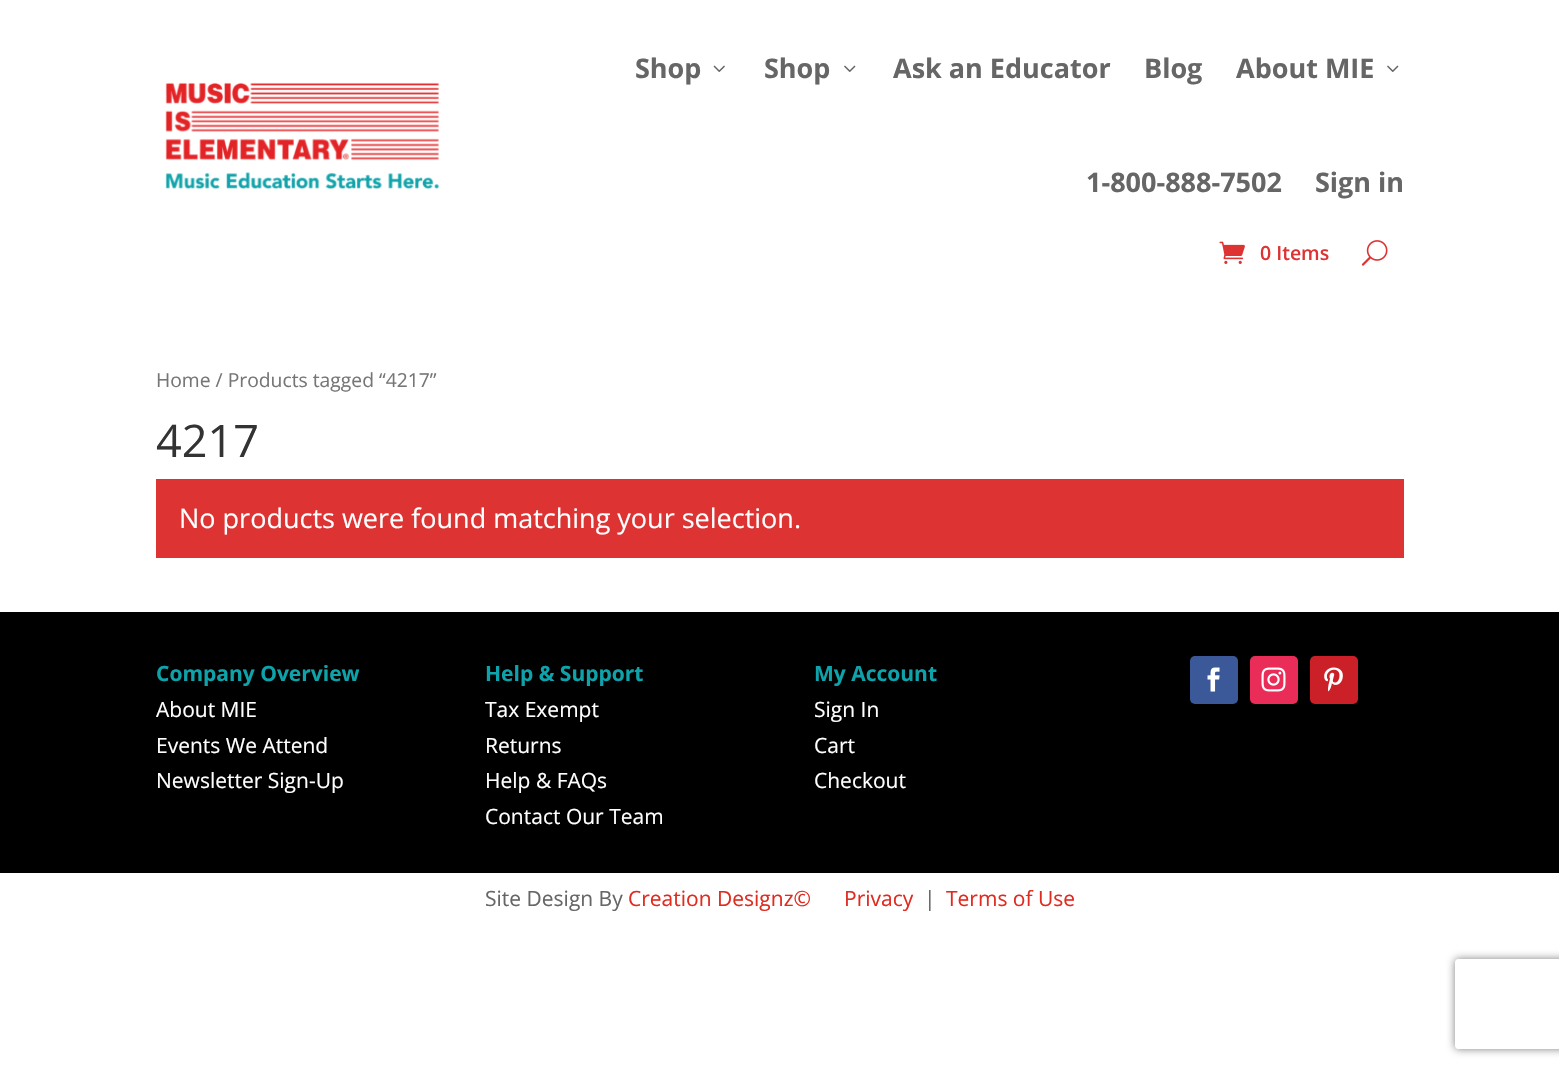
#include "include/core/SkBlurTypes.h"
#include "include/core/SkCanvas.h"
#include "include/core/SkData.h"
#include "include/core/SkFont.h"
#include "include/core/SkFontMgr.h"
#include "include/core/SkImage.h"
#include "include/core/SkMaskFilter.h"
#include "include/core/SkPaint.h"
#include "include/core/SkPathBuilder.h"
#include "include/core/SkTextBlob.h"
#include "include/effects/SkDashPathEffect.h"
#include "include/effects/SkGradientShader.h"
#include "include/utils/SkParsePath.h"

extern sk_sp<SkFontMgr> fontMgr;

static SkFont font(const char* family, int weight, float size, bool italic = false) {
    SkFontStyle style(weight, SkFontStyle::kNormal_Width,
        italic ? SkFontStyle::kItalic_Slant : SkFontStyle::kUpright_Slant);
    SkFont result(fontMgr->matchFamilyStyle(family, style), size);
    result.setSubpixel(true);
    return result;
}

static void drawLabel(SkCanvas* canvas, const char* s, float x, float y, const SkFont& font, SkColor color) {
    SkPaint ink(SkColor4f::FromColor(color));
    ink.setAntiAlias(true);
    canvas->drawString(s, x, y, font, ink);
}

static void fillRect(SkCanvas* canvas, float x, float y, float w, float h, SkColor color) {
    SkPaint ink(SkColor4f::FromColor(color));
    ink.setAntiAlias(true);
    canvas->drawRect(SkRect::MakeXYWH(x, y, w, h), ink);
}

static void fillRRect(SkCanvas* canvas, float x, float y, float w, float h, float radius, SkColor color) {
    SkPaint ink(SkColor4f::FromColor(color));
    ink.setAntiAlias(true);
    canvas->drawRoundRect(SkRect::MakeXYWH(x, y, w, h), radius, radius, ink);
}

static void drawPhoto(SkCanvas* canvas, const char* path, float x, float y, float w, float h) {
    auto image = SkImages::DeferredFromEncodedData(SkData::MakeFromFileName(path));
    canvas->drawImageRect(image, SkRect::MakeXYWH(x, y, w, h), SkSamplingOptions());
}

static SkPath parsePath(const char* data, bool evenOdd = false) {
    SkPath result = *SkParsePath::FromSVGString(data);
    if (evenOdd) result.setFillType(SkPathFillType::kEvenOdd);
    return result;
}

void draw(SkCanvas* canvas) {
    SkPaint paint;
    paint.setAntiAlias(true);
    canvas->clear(0xFFFFFFFF);
    drawPhoto(canvas, "assets/img1.png", 165, 82, 274, 108);
    SkFont font1 = font("Open Sans", 700, 27);
    drawLabel(canvas, "Shop", 635, 78, font1, 0xFF666666);
    drawPhoto(canvas, "assets/img2.png", 713, 65, 12, 7);
    drawLabel(canvas, "Shop", 764, 78, font1, 0xFF666666);
    drawPhoto(canvas, "assets/img3.png", 844, 65, 12, 7);
    drawLabel(canvas, "Ask an Educator", 893, 78, font1, 0xFF666666);
    drawLabel(canvas, "Blog", 1144, 78, font1, 0xFF666666);
    drawLabel(canvas, "About MIE", 1236, 78, font1, 0xFF666666);
    drawPhoto(canvas, "assets/img3.png", 1387, 65, 12, 7);
    drawLabel(canvas, "1-800-888-7502", 1086, 192, font1, 0xFF666666);
    drawLabel(canvas, "Sign in", 1315, 192, font1, 0xFF666666);
    drawPhoto(canvas, "assets/img4.png", 1219, 241, 26, 23);
    SkFont font2 = font("Open Sans", 600, 19.5f);
    drawLabel(canvas, "0 Items", 1260, 260, font2, 0xFFDD3333);
    drawPhoto(canvas, "assets/img5.png", 1361, 240, 27, 26);
    SkFont font3 = font("Open Sans", 400, 19.3f);
    drawLabel(canvas, "Home / Products tagged “4217”", 156, 387, font3, 0xFF767676);
    SkFont font4 = font("Open Sans", 400, 45);
    drawLabel(canvas, "4217", 156, 457, font4, 0xFF333333);
    fillRect(canvas, 156, 479, 1248, 79, 0xFFDD3333);
    SkFont font5 = font("Open Sans", 400, 27);
    drawLabel(canvas, "No products were found matching your selection.", 179, 528, font5, 0xFFFFFFFF);
    fillRect(canvas, 0, 612, 1559, 261, 0xFF000000);
    SkFont font6 = font("Open Sans", 700, 21);
    drawLabel(canvas, "Company Overview", 156, 681, font6, 0xFF0EA3AA);
    SkFont font7 = font("Open Sans", 400, 21);
    drawLabel(canvas, "About MIE", 156, 717, font7, 0xFFFFFFFF);
    drawLabel(canvas, "Events We Attend", 156, 753, font7, 0xFFFFFFFF);
    drawLabel(canvas, "Newsletter Sign-Up", 156, 788, font7, 0xFFFFFFFF);
    drawLabel(canvas, "Help & Support", 485, 681, font6, 0xFF0EA3AA);
    drawLabel(canvas, "Tax Exempt", 485, 717, font7, 0xFFFFFFFF);
    drawLabel(canvas, "Returns", 485, 753, font7, 0xFFFFFFFF);
    drawLabel(canvas, "Help & FAQs", 485, 788, font7, 0xFFFFFFFF);
    drawLabel(canvas, "Contact Our Team", 485, 824, font7, 0xFFFFFFFF);
    drawLabel(canvas, "My Account", 814, 681, font6, 0xFF0EA3AA);
    drawLabel(canvas, "Sign In", 814, 717, font7, 0xFFFFFFFF);
    drawLabel(canvas, "Cart", 814, 753, font7, 0xFFFFFFFF);
    drawLabel(canvas, "Checkout", 814, 788, font7, 0xFFFFFFFF);
    fillRRect(canvas, 1190, 656, 48, 48, 5, 0xFF3B5998);
    drawPhoto(canvas, "assets/img6.png", 1207, 667, 13, 25);
    fillRRect(canvas, 1250, 656, 48, 48, 5, 0xFFEA2C59);
    drawPhoto(canvas, "assets/img7.png", 1261, 667, 25, 25);
    fillRRect(canvas, 1310, 656, 48, 48, 5, 0xFFCB2027);
    drawPhoto(canvas, "assets/img8.png", 1324, 667, 19, 25);
    drawLabel(canvas, "Site Design By", 485, 906, font7, 0xFF666666);
    drawLabel(canvas, "Creation Designz©", 628, 906, font7, 0xFFE02B20);
    drawLabel(canvas, "Privacy", 844, 906, font7, 0xFFE02B20);
    drawLabel(canvas, "|", 924, 906, font7, 0xFF666666);
    drawLabel(canvas, "Terms of Use", 946, 906, font7, 0xFFE02B20);
    canvas->save();
    canvas->clipPath(parsePath("M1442 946H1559V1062H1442ZM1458 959H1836C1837.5 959 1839 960.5 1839 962V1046C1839 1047.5 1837.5 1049 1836 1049H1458C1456.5 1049 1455 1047.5 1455 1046V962C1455 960.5 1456.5 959 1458 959Z", true), true);
    paint.setColor(0xFF808080);
    paint.setMaskFilter(SkMaskFilter::MakeBlur(kNormal_SkBlurStyle, 4));
    canvas->drawRoundRect(SkRect::MakeXYWH(1455, 959, 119, 90), 3, 3, paint);
    paint.setMaskFilter(nullptr);
    canvas->restore();
}
